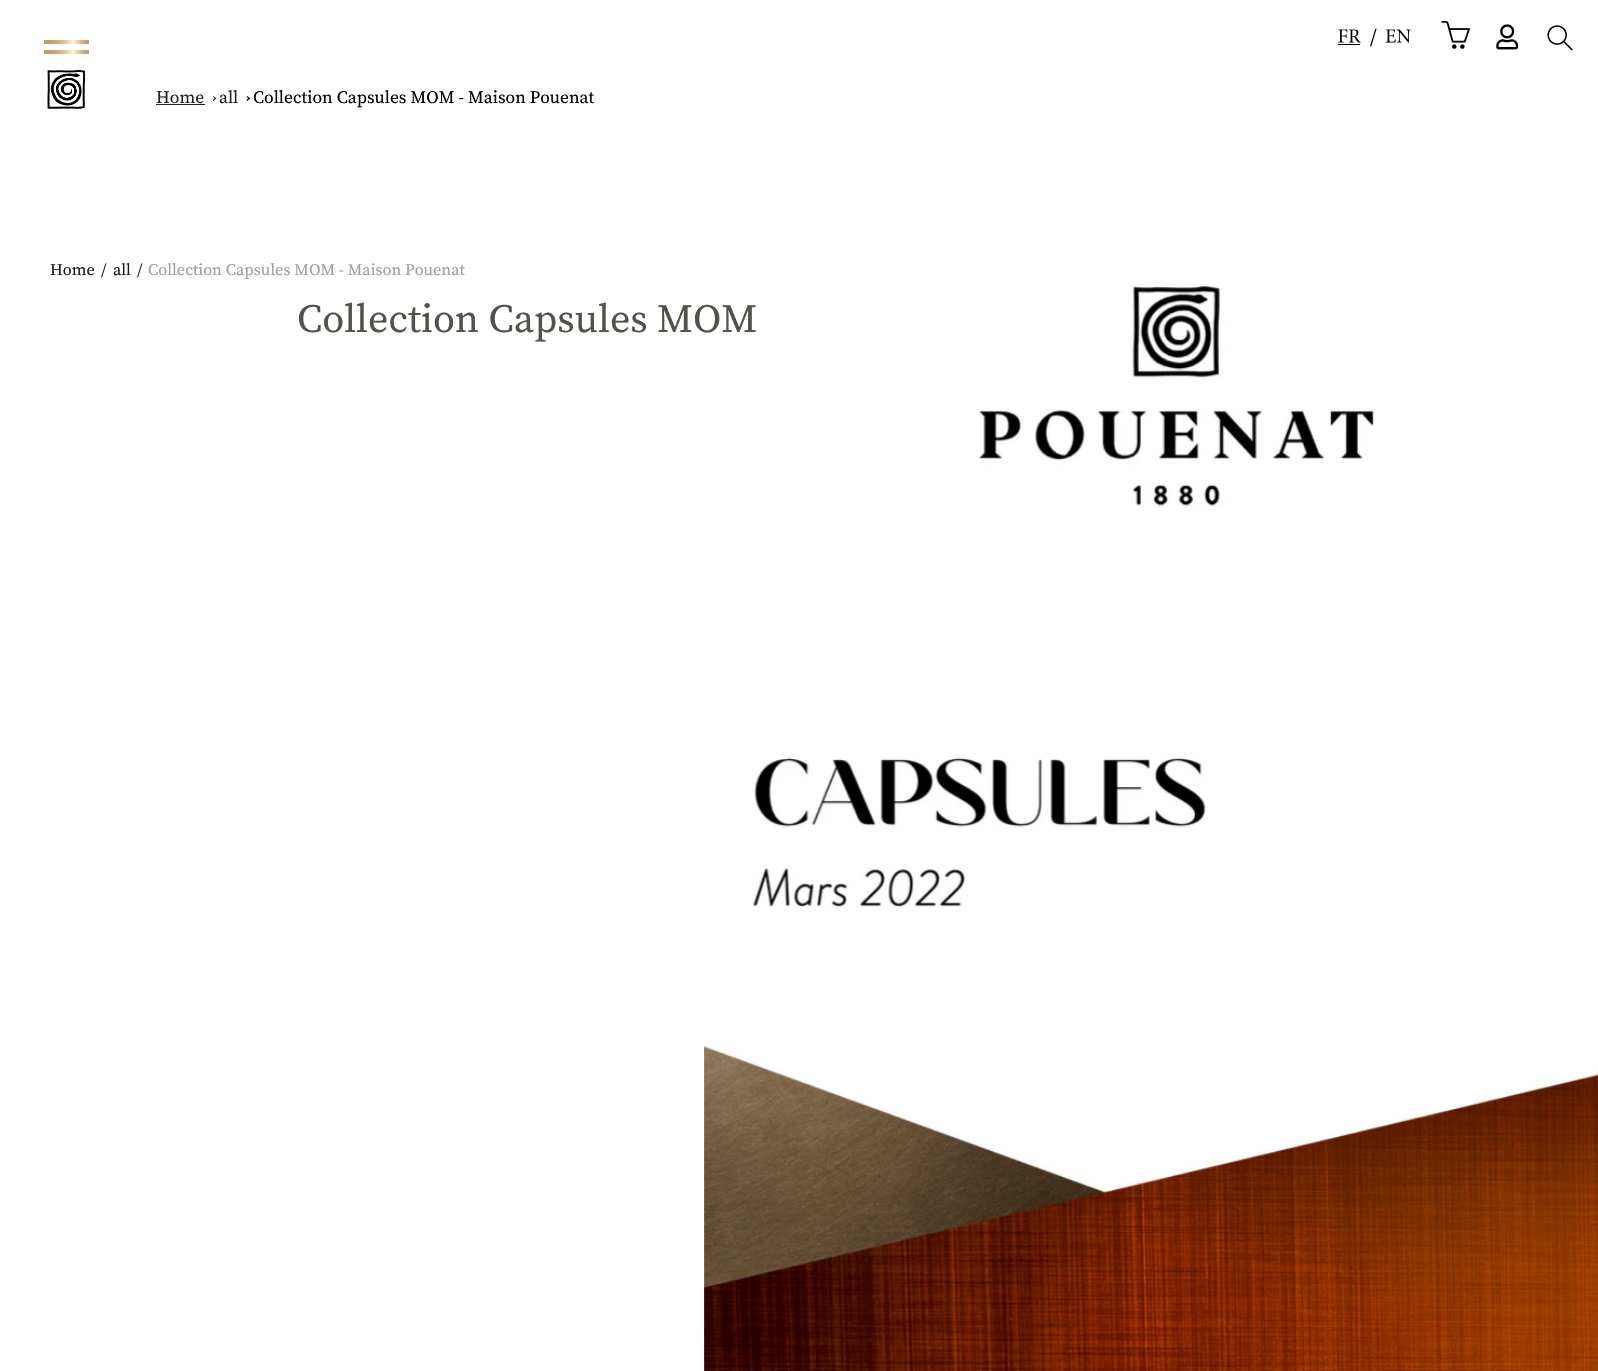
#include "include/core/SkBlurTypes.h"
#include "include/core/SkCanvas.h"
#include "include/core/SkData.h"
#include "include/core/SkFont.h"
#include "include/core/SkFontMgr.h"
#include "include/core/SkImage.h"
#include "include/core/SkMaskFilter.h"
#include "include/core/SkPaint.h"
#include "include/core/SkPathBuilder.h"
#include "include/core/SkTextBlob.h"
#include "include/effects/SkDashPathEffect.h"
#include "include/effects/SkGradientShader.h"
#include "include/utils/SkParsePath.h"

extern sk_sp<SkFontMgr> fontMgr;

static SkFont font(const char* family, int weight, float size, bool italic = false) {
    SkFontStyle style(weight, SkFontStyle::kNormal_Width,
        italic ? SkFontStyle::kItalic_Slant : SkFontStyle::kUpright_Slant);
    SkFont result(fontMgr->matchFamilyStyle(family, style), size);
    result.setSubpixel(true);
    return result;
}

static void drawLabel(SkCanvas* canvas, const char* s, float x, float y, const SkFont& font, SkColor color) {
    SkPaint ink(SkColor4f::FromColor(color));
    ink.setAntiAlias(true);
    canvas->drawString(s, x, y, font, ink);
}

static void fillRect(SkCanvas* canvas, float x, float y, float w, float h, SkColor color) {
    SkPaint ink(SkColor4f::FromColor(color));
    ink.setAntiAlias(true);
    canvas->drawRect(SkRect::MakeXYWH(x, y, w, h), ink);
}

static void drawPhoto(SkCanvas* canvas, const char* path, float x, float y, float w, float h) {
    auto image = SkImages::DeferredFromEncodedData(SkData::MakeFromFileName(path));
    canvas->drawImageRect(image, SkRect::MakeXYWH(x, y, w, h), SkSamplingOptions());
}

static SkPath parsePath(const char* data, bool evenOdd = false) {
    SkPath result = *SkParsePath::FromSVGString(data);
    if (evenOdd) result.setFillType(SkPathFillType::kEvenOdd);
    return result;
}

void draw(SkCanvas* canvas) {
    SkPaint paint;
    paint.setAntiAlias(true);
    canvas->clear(0xFFFFFFFF);
    drawPhoto(canvas, "assets/img1.png", 1338, 29, 23, 14);
    fillRect(canvas, 1338, 44, 22, 1, 0xFF000000);
    SkFont font1 = font("Source Serif Pro", 400, 20);
    drawLabel(canvas, "/", 1370, 43, font1, 0xFF000000);
    drawPhoto(canvas, "assets/img2.png", 1385, 29, 26, 14);
    {
        const SkColor colors[] = {0xFFC19D63, 0xFFC19D63, 0xFFC5A269, 0xFFD1B37F, 0xFFDEC596, 0xFFE8D3A9, 0xFFF5E9C7, 0xFFFFF9DC, 0xFFFEF8DA, 0xFFFAF1D1, 0xFFE9D6AE, 0xFFD5B885, 0xFFCDAD77, 0xFFC5A36A, 0xFFC19D63, 0xFFC19D63};
        const float stops[] = {0, 0.09f, 0.18f, 0.35f, 0.46f, 0.52f, 0.61f, 0.65f, 0.66f, 0.67f, 0.74f, 0.84f, 0.88f, 0.93f, 0.98f, 1};
        const SkPoint ends[] = {{44, 42}, {89, 42}};
        paint.setShader(SkGradientShader::MakeLinear(ends, colors, stops, 16, SkTileMode::kClamp));
        paint.setAlpha(255);
    }
    canvas->drawRect(SkRect::MakeXYWH(44, 40, 45, 4), paint);
    {
        const SkColor colors[] = {0xFFC19D63, 0xFFC19D63, 0xFFC5A269, 0xFFD1B37F, 0xFFDEC596, 0xFFE8D3A9, 0xFFF5E9C7, 0xFFFFF9DC, 0xFFFEF8DA, 0xFFFAF1D1, 0xFFE9D6AE, 0xFFD5B885, 0xFFCDAD77, 0xFFC5A36A, 0xFFC19D63, 0xFFC19D63};
        const float stops[] = {0, 0.09f, 0.18f, 0.35f, 0.46f, 0.52f, 0.61f, 0.65f, 0.66f, 0.67f, 0.74f, 0.84f, 0.88f, 0.93f, 0.98f, 1};
        const SkPoint ends[] = {{44, 52}, {89, 52}};
        paint.setShader(SkGradientShader::MakeLinear(ends, colors, stops, 16, SkTileMode::kClamp));
        paint.setAlpha(255);
    }
    canvas->drawRect(SkRect::MakeXYWH(44, 50, 45, 4), paint);
    drawPhoto(canvas, "assets/img3.png", 1441, 21, 29, 28);
    drawPhoto(canvas, "assets/img4.png", 1496, 24, 23, 26);
    drawPhoto(canvas, "assets/img5.png", 1547, 25, 26, 26);
    drawPhoto(canvas, "assets/img6.png", 47, 70, 38, 39);
    SkFont font2 = font("Source Serif Pro", 400, 17.5f);
    drawLabel(canvas, "Home", 156, 103, font2, 0xFF202020);
    fillRect(canvas, 156, 104, 49, 1, 0xFF202020);
    paint.setShader(nullptr);
    paint.setColor(0xFF000000);
    canvas->drawPath(parsePath("M213.5 96L216 98.5L215.5 99L213 96.5Z"), paint);
    drawLabel(canvas, "all", 219, 103, font2, 0xFF202020);
    canvas->drawPath(parsePath("M215.5 97.5L216 98.5L213.5 101L213 100ZM247.5 96L250 98.5L249 99L246.5 96.5Z"), paint);
    canvas->drawPath(parsePath("M249 97.5L250 98.5L247.5 101L246.5 100Z"), paint);
    drawLabel(canvas, "Collection Capsules MOM - Maison Pouenat", 253, 103, font2, 0xFF000000);
    SkFont font3 = font("Source Serif Pro", 400, 16.25f);
    drawLabel(canvas, "Home", 50, 275, font3, 0xFF1B1919);
    drawLabel(canvas, "/", 101, 275, font3, 0xFF1B1919);
    drawLabel(canvas, "all", 113, 275, font3, 0xFF1B1919);
    drawLabel(canvas, "/", 137, 275, font3, 0xFF1B1919);
    drawLabel(canvas, "Collection Capsules MOM - Maison Pouenat", 148, 275, font3, 0xFF9E9E9E);
    drawPhoto(canvas, "assets/img7.png", 704, 284, 894, 1087);
    SkFont font4 = font("Source Serif Pro", 400, 40);
    drawLabel(canvas, "Collection Capsules MOM", 297, 332, font4, 0xFF51534A);
}
